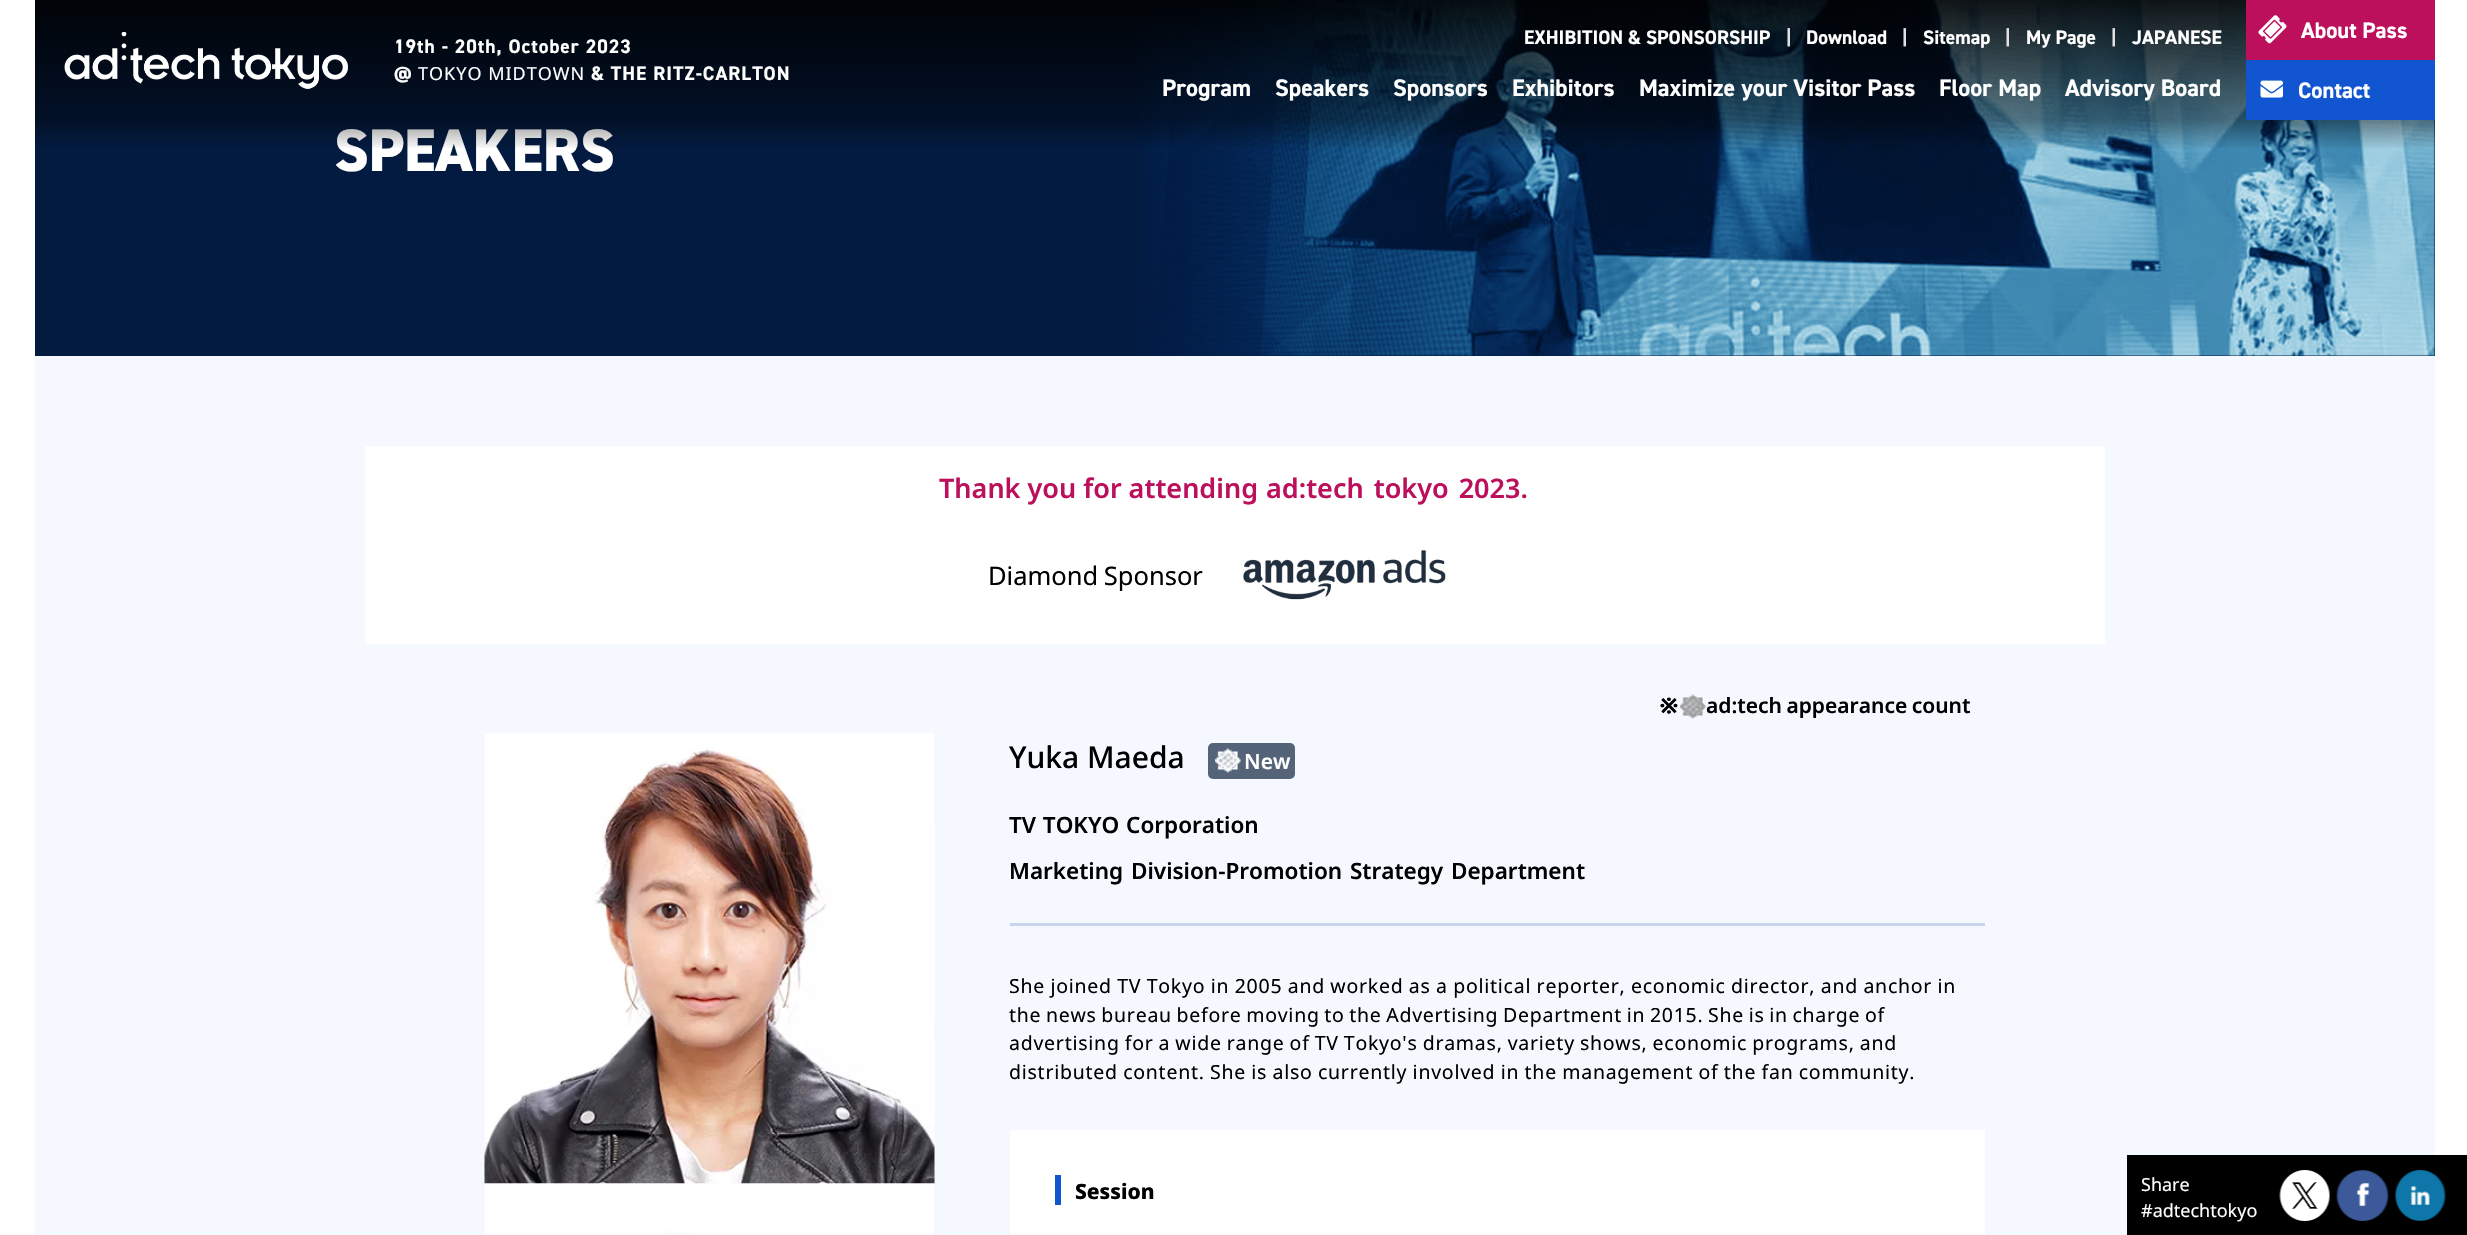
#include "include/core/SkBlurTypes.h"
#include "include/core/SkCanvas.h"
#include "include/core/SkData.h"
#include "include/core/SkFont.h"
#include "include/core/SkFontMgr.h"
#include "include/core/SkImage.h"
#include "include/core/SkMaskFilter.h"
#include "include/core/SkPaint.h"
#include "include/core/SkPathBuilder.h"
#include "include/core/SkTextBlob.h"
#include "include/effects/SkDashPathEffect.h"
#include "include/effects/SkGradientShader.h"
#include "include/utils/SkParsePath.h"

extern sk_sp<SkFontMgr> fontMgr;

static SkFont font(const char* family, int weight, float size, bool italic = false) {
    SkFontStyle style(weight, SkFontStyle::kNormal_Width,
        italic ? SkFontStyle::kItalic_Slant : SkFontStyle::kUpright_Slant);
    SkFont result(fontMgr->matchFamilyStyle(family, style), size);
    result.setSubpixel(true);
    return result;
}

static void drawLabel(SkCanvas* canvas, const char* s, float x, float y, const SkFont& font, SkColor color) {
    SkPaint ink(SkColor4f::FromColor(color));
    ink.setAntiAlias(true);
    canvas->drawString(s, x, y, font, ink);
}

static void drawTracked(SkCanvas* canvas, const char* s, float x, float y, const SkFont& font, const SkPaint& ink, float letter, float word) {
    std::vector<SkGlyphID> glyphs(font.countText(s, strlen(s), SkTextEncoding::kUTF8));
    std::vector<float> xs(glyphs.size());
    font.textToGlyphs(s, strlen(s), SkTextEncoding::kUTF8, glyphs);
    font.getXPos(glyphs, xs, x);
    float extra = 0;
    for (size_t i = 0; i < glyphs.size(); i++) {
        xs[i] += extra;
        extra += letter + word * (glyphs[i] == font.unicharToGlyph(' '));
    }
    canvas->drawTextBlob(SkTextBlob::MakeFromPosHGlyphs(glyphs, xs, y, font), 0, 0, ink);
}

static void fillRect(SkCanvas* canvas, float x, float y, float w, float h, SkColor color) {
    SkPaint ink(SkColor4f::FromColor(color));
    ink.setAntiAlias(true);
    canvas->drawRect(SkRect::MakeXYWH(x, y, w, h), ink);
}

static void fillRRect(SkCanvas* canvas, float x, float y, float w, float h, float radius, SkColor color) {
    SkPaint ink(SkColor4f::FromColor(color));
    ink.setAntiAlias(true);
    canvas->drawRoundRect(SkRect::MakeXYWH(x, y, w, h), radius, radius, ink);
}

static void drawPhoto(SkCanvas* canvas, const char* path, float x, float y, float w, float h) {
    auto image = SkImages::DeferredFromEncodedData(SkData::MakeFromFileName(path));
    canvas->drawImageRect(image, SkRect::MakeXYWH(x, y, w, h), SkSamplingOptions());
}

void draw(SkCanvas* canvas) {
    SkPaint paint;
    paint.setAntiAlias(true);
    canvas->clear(0xFFFFFFFF);
    fillRect(canvas, 35, 0, 2400, 356, 0xFF031B41);
    drawPhoto(canvas, "assets/img4.png", 1141, 0, 1294, 356);
    SkFont font1 = font("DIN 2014", 800, 60);
    drawLabel(canvas, "SPEAKERS", 334, 171, font1, 0xFFFFFFFF);
    {
        const SkColor colors[] = {0xE6000000, 0x66000000, 0x00000000};
        const float stops[] = {0, 0.8f, 1};
        const SkPoint ends[] = {{1235, 0}, {1235, 150}};
        paint.setShader(SkGradientShader::MakeLinear(ends, colors, stops, 3, SkTileMode::kClamp));
        paint.setAlpha(255);
    }
    canvas->drawRect(SkRect::MakeXYWH(35, 0, 2400, 148), paint);
    drawPhoto(canvas, "assets/img1.png", 64, 32, 284, 57);
    SkFont font2 = font("DIN 2014", 700, 19.5f);
    paint.setShader(nullptr);
    paint.setColor(0xFFFFFFFF);
    drawTracked(canvas, "19th - 20th, October 2023", 394, 53, font2, paint, 1, 0);
    drawTracked(canvas, "@", 394, 80, font2, paint, 1, 0);
    SkFont font3 = font("Noto Sans", 400, 18);
    drawTracked(canvas, "TOKYO MIDTOWN", 418, 80, font3, paint, 1, 0);
    drawTracked(canvas, "& THE RITZ-CARLTON", 591, 80, font2, paint, 1, 0);
    drawLabel(canvas, "EXHIBITION & SPONSORSHIP", 1524, 44, font2, 0xFFFFFFFF);
    drawLabel(canvas, "|", 1786, 44, font2, 0xFFE1E1E1);
    drawLabel(canvas, "Download", 1806, 44, font2, 0xFFFFFFFF);
    drawLabel(canvas, "|", 1902, 44, font2, 0xFFE1E1E1);
    drawLabel(canvas, "Sitemap", 1923, 44, font2, 0xFFFFFFFF);
    drawLabel(canvas, "|", 2005, 44, font2, 0xFFE1E1E1);
    drawLabel(canvas, "My Page", 2026, 44, font2, 0xFFFFFFFF);
    drawLabel(canvas, "|", 2111, 44, font2, 0xFFE1E1E1);
    drawLabel(canvas, "JAPANESE", 2132, 44, font2, 0xFFFFFFFF);
    SkFont font4 = font("DIN 2014", 700, 24);
    drawLabel(canvas, "Program", 1162, 96, font4, 0xFFFFFFFF);
    drawLabel(canvas, "Speakers", 1275, 96, font4, 0xFFFFFFFF);
    drawLabel(canvas, "Sponsors", 1393, 96, font4, 0xFFFFFFFF);
    drawLabel(canvas, "Exhibitors", 1512, 96, font4, 0xFFFFFFFF);
    drawLabel(canvas, "Maximize your Visitor Pass", 1639, 96, font4, 0xFFFFFFFF);
    drawLabel(canvas, "Floor Map", 1939, 96, font4, 0xFFFFFFFF);
    drawLabel(canvas, "Advisory Board", 2065, 96, font4, 0xFFFFFFFF);
    fillRect(canvas, 2246, 0, 189, 60, 0xFFBC0F5C);
    drawPhoto(canvas, "assets/img2.png", 2258, 15, 29, 29);
    SkFont font5 = font("DIN 2014", 700, 22.5f);
    drawLabel(canvas, "About Pass", 2301, 38, font5, 0xFFFFFFFF);
    fillRect(canvas, 2246, 60, 189, 60, 0xFF1155D0);
    drawPhoto(canvas, "assets/img3.png", 2260, 80, 23, 18);
    drawLabel(canvas, "Contact", 2298, 98, font5, 0xFFFFFFFF);
    fillRect(canvas, 35, 356, 2400, 879, 0xFFF5F9FF);
    fillRect(canvas, 365, 446, 1740, 198, 0xFFFFFFFF);
    SkFont font6 = font("Noto Sans", 600, 27);
    drawLabel(canvas, "Thank you for attending", 939, 498, font6, 0xFFBC0F5C);
    paint.setColor(0xFFBC0F5C);
    drawTracked(canvas, "ad:tech tokyo 2023.", 1266, 498, font6, paint, 0, 3);
    SkFont font7 = font("Noto Sans", 400, 25.5f);
    paint.setColor(0xFF000000);
    drawTracked(canvas, "Diamond Sponsor", 988, 585, font7, paint, 0, -1);
    drawPhoto(canvas, "assets/img5.png", 1243, 550, 203, 50);
    SkFont font8 = font("Noto Sans", 900, 21);
    drawLabel(canvas, "※", 1660, 713, font8, 0xFF000000);
    drawPhoto(canvas, "assets/img6.png", 1680, 694, 26, 25);
    SkFont font9 = font("Noto Sans", 600, 21);
    drawTracked(canvas, "：ad:tech appearance count", 1706, 713, font9, paint, 0, -1);
    drawPhoto(canvas, "assets/img7.png", 484, 733, 451, 451);
    drawPhoto(canvas, "assets/img8.png", 484, 1183, 451, 52);
    fillRect(canvas, 1010, 923, 975, 3, 0xFFC6D6EE);
    SkFont font10 = font("Noto Sans", 500, 30);
    drawLabel(canvas, "Yuka Maeda", 1009, 768, font10, 0xFF000000);
    fillRRect(canvas, 1208, 743, 87, 36, 5, 0xFF556379);
    drawPhoto(canvas, "assets/img9.png", 1215, 748, 26, 25);
    drawLabel(canvas, "New", 1244, 769, font9, 0xFFFFFFFF);
    SkFont font11 = font("Noto Sans", 600, 22.5f);
    drawTracked(canvas, "TV TOKYO Corporation", 1009, 833, font11, paint, 0, 1);
    drawTracked(canvas, "Marketing Division-Promotion Strategy Department", 1009, 879, font11, paint, 0, 2);
    SkFont font12 = font("Noto Sans", 400, 19.5f);
    drawTracked(canvas, "She joined TV Tokyo in 2005 and worked as a political reporter, economic director, and anchor in", 1009, 993, font12, paint, 0.75f, -0.4f);
    drawTracked(canvas, "the news bureau before moving to the Advertising Department in 2015. She is in charge of", 1009, 1022, font12, paint, 0.75f, -1.2f);
    drawTracked(canvas, "advertising for a wide range of TV Tokyo's dramas, variety shows, economic programs, and", 1009, 1050, font12, paint, 0.75f, -0.75f);
    drawTracked(canvas, "distributed content. She is also currently involved in the management of the fan community.", 1009, 1079, font12, paint, 0.75f, -0.5f);
    fillRect(canvas, 1010, 1130, 975, 105, 0xFFFFFFFF);
    fillRect(canvas, 1055, 1175, 6, 30, 0xFF1155D0);
    SkFont font13 = font("Noto Sans", 800, 21);
    drawLabel(canvas, "Session", 1075, 1199, font13, 0xFF000000);
    fillRect(canvas, 2127, 1155, 340, 80, 0xFF000000);
    drawLabel(canvas, "Share", 2141, 1191, font3, 0xFFFFFFFF);
    drawLabel(canvas, "#adtechtokyo", 2141, 1217, font3, 0xFFFFFFFF);
    drawPhoto(canvas, "assets/img10.png", 2279, 1170, 51, 51);
    drawPhoto(canvas, "assets/img11.png", 2336, 1170, 53, 51);
    drawPhoto(canvas, "assets/img12.png", 2395, 1170, 51, 51);
}
